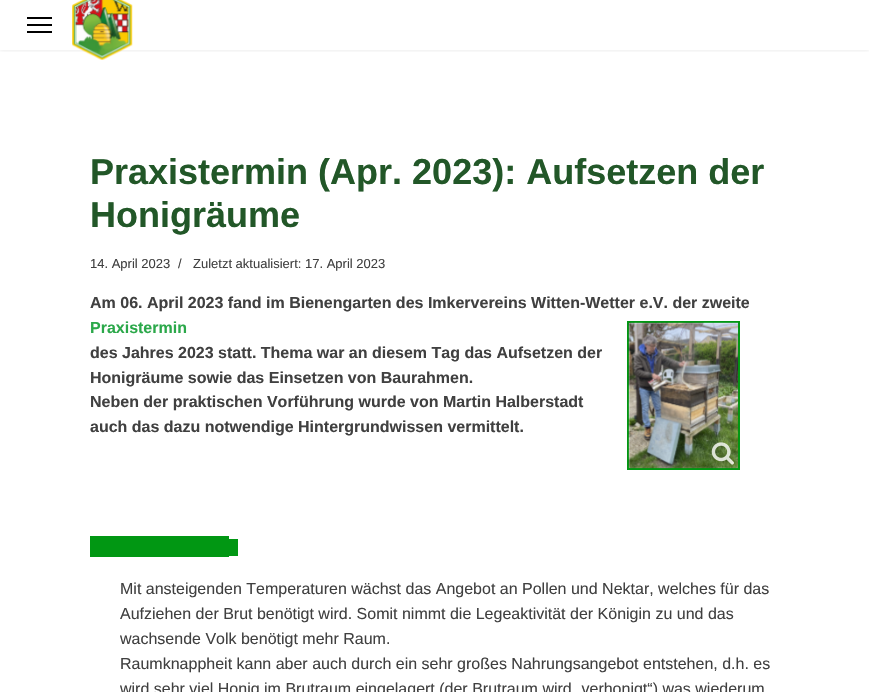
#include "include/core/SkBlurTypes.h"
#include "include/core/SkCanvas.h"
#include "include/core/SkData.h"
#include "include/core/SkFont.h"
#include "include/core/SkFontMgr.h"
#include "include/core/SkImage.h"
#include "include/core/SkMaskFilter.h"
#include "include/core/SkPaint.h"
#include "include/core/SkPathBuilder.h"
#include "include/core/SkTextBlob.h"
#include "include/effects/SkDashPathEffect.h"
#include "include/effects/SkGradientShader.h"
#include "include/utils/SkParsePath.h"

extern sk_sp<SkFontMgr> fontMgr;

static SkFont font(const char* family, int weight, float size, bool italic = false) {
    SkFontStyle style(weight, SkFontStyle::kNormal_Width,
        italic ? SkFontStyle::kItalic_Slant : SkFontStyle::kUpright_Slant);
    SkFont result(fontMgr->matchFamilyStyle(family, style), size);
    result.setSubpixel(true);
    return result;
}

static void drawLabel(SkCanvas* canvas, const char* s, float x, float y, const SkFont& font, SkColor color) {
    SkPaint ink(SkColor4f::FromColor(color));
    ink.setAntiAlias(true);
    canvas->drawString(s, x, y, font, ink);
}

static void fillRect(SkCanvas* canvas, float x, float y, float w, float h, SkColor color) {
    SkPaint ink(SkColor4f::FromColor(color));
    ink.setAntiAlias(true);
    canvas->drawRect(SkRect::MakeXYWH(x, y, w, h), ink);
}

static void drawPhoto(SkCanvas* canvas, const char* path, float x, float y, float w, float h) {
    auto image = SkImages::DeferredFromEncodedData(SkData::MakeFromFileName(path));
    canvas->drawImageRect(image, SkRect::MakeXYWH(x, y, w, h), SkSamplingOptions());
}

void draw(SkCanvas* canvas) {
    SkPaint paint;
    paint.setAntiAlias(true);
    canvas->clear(0xFFFFFFFF);
    canvas->save();
    canvas->clipRect(SkRect::MakeXYWH(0, 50, 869, 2));
    paint.setColor(0x1A000000);
    paint.setMaskFilter(SkMaskFilter::MakeBlur(kNormal_SkBlurStyle, 2));
    canvas->drawRect(SkRect::MakeXYWH(0, 0, 869, 50), paint);
    paint.setMaskFilter(nullptr);
    canvas->restore();
    fillRect(canvas, 27, 17, 25, 2, 0xFF000000);
    fillRect(canvas, 27, 24, 25, 2, 0xFF000000);
    fillRect(canvas, 27, 31, 25, 2, 0xFF000000);
    drawPhoto(canvas, "assets/img1.png", 72, 0, 61, 60);
    SkFont font1 = font("Liberation Sans", 700, 36);
    drawLabel(canvas, "Praxistermin (Apr. 2023): Aufsetzen der", 90, 184, font1, 0xFF225728);
    drawLabel(canvas, "Honigräume", 90, 227, font1, 0xFF225728);
    SkFont font2 = font("Liberation Sans", 400, 13);
    drawLabel(canvas, "14. April 2023", 90, 268, font2, 0xFF404040);
    drawLabel(canvas, "/", 178, 268, font2, 0xFF404040);
    drawLabel(canvas, "Zuletzt aktualisiert: 17. April 2023", 193, 268, font2, 0xFF404040);
    SkFont font3 = font("Liberation Sans", 700, 16);
    drawLabel(canvas, "Am 06. April 2023 fand im Bienengarten des Imkervereins Witten-Wetter e.V. der zweite", 90, 308, font3, 0xFF404040);
    drawLabel(canvas, "Praxistermin", 90, 333, font3, 0xFF2BA84A);
    paint.setStroke(true);
    paint.setStrokeWidth(2);
    paint.setColor(0xFF019713);
    canvas->drawRect(SkRect::MakeXYWH(628, 322, 111, 147), paint);
    drawPhoto(canvas, "assets/img2.png", 628, 322, 111, 147);
    drawPhoto(canvas, "assets/img3.png", 711, 442, 23, 23);
    drawLabel(canvas, "des Jahres 2023 statt. Thema war an diesem Tag das Aufsetzen der", 90, 358, font3, 0xFF404040);
    drawLabel(canvas, "Honigräume sowie das Einsetzen von Baurahmen.", 90, 383, font3, 0xFF404040);
    drawLabel(canvas, "Neben der praktischen Vorführung wurde von Martin Halberstadt", 90, 407, font3, 0xFF404040);
    drawLabel(canvas, "auch das dazu notwendige Hintergrundwissen vermittelt.", 90, 432, font3, 0xFF404040);
    fillRect(canvas, 90, 536, 139, 21, 0xFF019713);
    fillRect(canvas, 229, 539, 9, 17, 0xFF019713);
    SkFont font4 = font("Liberation Sans", 400, 16);
    drawLabel(canvas, "Mit ansteigenden Temperaturen wächst das Angebot an Pollen und Nektar, welches für das", 120, 594, font4, 0xFF404040);
    drawLabel(canvas, "Aufziehen der Brut benötigt wird. Somit nimmt die Legeaktivität der Königin zu und das", 120, 619, font4, 0xFF404040);
    drawLabel(canvas, "wachsende Volk benötigt mehr Raum.", 120, 644, font4, 0xFF404040);
    drawLabel(canvas, "Raumknappheit kann aber auch durch ein sehr großes Nahrungsangebot entstehen, d.h. es", 120, 669, font4, 0xFF404040);
    drawLabel(canvas, "wird sehr viel Honig im Brutraum eingelagert (der Brutraum wird „verhonigt“) was wiederum", 120, 694, font4, 0xFF404040);
}
